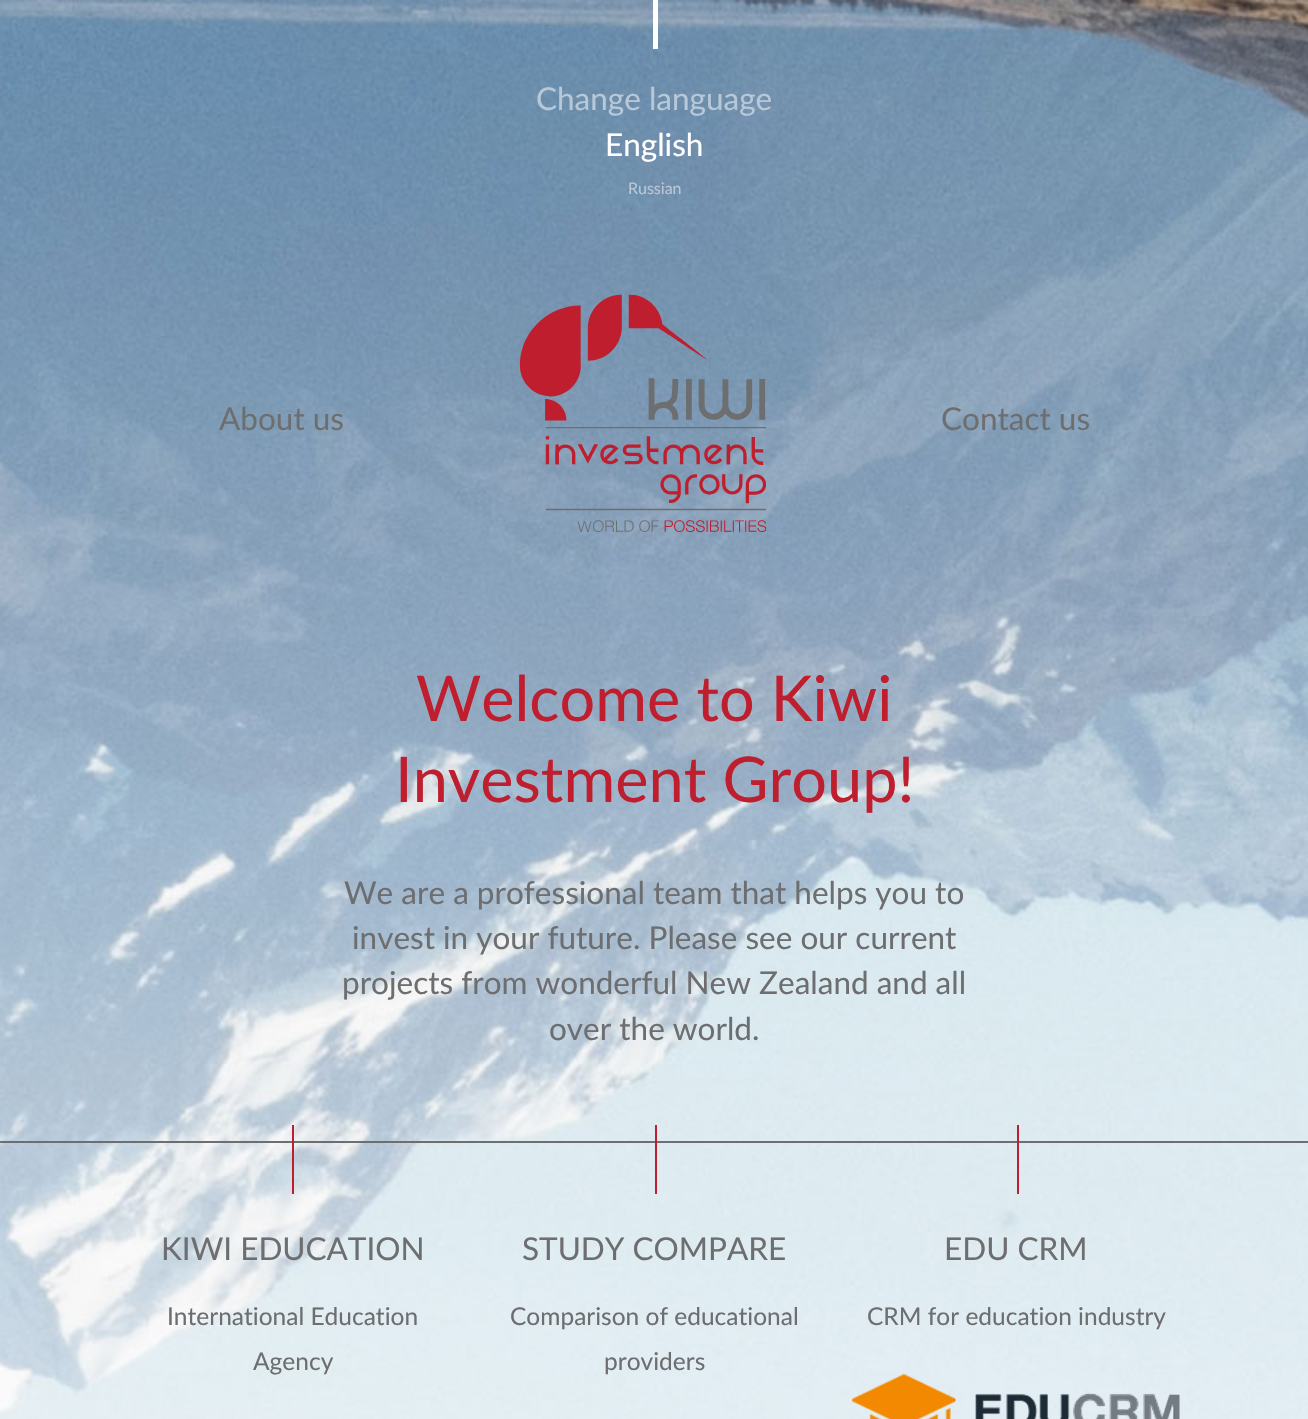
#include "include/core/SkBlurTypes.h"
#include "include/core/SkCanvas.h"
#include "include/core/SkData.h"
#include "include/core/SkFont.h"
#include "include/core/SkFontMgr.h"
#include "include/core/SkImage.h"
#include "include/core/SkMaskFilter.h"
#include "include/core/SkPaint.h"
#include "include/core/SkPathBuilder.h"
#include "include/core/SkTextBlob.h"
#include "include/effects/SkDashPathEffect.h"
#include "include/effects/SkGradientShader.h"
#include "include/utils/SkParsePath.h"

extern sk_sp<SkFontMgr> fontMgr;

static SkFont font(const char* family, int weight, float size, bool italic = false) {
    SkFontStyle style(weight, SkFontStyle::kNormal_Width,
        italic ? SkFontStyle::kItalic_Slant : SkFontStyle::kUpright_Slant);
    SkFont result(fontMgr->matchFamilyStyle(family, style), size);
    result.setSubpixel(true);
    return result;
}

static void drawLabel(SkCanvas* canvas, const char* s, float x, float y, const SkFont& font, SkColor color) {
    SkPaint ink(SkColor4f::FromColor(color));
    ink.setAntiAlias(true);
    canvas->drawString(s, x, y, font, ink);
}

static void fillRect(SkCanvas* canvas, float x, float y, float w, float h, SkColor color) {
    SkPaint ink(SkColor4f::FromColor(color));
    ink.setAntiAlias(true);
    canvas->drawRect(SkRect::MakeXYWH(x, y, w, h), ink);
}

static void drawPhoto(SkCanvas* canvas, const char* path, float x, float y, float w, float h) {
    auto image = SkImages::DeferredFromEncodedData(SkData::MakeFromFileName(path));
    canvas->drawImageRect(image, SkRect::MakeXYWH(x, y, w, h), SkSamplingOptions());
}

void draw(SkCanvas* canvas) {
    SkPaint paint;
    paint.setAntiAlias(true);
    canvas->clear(0xFFFFFFFF);
    drawPhoto(canvas, "assets/img1.png", 0, 0, 1308, 1419);
    fillRect(canvas, 0, 1141, 1308, 2, 0xFF6D6E70);
    fillRect(canvas, 653, 0, 5, 49, 0xFFFFFFFF);
    SkFont font1 = font("Lato", 400, 31.5f);
    drawLabel(canvas, "Change language", 536, 110, font1, 0xFFB8C8D7);
    drawLabel(canvas, "English", 605, 156, font1, 0xFFFFFFFF);
    SkFont font2 = font("Lato", 400, 16);
    drawLabel(canvas, "Russian", 628, 194, font2, 0xFFB8C8D7);
    drawLabel(canvas, "About us", 219, 430, font1, 0xFF6D6E70);
    drawPhoto(canvas, "assets/img2.png", 520, 294, 247, 238);
    drawLabel(canvas, "Contact us", 941, 430, font1, 0xFF6D6E70);
    SkFont font3 = font("Lato", 400, 63);
    drawLabel(canvas, "Welcome to Kiwi", 416, 721, font3, 0xFFBE1E2D);
    drawLabel(canvas, "Investment Group!", 395, 802, font3, 0xFFBE1E2D);
    drawLabel(canvas, "We are a professional team that helps you to", 344, 904, font1, 0xFF6D6E70);
    drawLabel(canvas, "invest in your future. Please see our current", 352, 949, font1, 0xFF6D6E70);
    drawLabel(canvas, "projects from wonderful New Zealand and all", 342, 994, font1, 0xFF6D6E70);
    drawLabel(canvas, "over the world.", 549, 1040, font1, 0xFF6D6E70);
    fillRect(canvas, 292, 1125, 2, 69, 0xFFBE1E2D);
    drawLabel(canvas, "KIWI EDUCATION", 161, 1260, font1, 0xFF6D6E70);
    SkFont font4 = font("Lato", 400, 24.5f);
    drawLabel(canvas, "International Education", 167, 1325, font4, 0xFF6D6E70);
    drawLabel(canvas, "Agency", 253, 1370, font4, 0xFF6D6E70);
    fillRect(canvas, 655, 1125, 2, 69, 0xFFBE1E2D);
    drawLabel(canvas, "STUDY COMPARE", 522, 1260, font1, 0xFF6D6E70);
    drawLabel(canvas, "Comparison of educational", 510, 1325, font4, 0xFF6D6E70);
    drawLabel(canvas, "providers", 604, 1370, font4, 0xFF6D6E70);
    fillRect(canvas, 1017, 1125, 2, 69, 0xFFBE1E2D);
    drawLabel(canvas, "EDU CRM", 944, 1260, font1, 0xFF6D6E70);
    drawLabel(canvas, "CRM for education industry", 867, 1325, font4, 0xFF6D6E70);
    drawPhoto(canvas, "assets/img3.png", 852, 1373, 328, 46);
}
